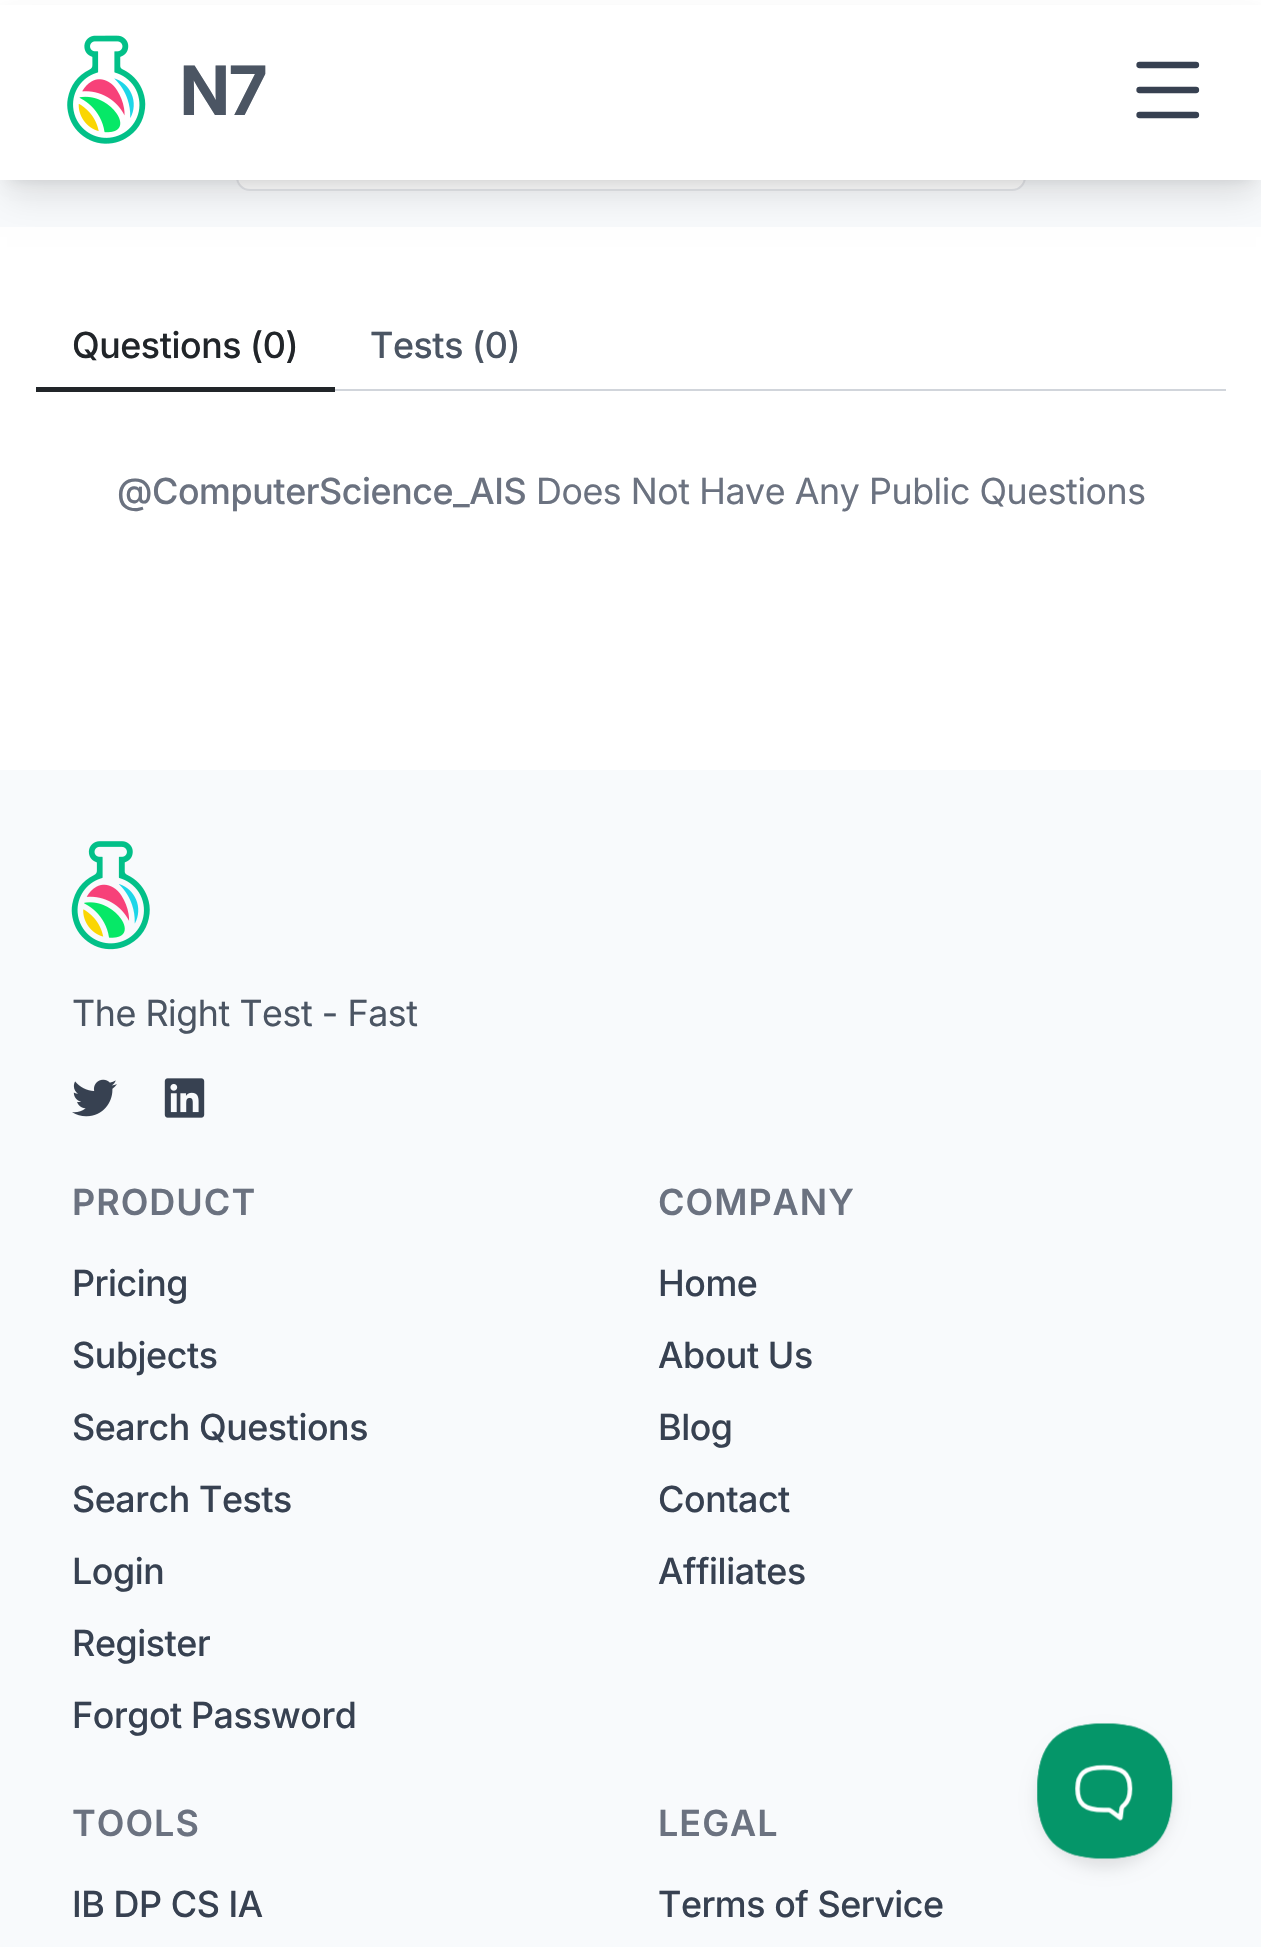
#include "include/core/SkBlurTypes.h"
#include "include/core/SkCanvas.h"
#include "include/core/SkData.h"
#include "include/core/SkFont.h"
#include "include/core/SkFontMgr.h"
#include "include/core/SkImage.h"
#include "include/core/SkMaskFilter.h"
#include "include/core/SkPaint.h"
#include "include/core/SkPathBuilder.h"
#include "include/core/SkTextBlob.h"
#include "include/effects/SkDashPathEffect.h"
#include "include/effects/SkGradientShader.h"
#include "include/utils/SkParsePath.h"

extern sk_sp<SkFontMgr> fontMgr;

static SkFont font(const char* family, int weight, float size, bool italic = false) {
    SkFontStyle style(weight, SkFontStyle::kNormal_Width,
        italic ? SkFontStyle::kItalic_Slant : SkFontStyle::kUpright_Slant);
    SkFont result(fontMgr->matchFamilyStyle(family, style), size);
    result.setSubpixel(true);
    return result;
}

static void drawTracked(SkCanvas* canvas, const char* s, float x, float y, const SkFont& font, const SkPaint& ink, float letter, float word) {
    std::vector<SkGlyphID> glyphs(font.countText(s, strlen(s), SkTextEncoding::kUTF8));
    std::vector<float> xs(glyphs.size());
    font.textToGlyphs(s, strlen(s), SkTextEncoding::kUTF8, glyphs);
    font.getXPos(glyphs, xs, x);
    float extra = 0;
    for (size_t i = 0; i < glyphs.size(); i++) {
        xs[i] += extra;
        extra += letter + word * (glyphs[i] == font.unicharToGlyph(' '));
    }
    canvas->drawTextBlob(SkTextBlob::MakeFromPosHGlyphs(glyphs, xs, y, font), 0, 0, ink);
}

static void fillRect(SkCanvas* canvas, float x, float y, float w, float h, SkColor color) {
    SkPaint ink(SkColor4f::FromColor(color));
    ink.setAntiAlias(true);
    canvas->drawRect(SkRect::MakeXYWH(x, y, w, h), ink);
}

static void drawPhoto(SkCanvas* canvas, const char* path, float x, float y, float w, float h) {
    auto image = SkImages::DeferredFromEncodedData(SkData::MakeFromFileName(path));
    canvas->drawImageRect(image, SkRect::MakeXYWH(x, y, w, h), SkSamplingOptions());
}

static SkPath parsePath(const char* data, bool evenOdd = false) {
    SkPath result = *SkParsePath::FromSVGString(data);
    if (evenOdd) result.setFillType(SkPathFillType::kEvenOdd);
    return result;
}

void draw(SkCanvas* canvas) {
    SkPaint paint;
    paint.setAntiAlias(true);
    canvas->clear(0xFFFFFFFF);
    fillRect(canvas, 0, 180, 1261, 47, 0xFFF8FAFC);
    paint.setColor(0xFFFFFFFF);
    canvas->drawRoundRect(SkRect::MakeXYWH(237, 102, 788, 88), 13, 13, paint);
    paint.setStroke(true);
    paint.setStrokeWidth(2);
    paint.setColor(0xFFE5E7EB);
    canvas->drawRoundRect(SkRect::MakeXYWH(237, 102, 788, 88), 13, 13, paint);
    paint.setStroke(false);
    paint.setColor(0x1A000000);
    paint.setMaskFilter(SkMaskFilter::MakeBlur(kNormal_SkBlurStyle, 7));
    canvas->drawRect(SkRect::MakeXYWH(9, 18, 1244, 162), paint);
    paint.setMaskFilter(nullptr);
    paint.setMaskFilter(SkMaskFilter::MakeBlur(kNormal_SkBlurStyle, 17));
    canvas->drawRect(SkRect::MakeXYWH(7, 29, 1249, 167), paint);
    paint.setMaskFilter(nullptr);
    fillRect(canvas, 0, 5, 1261, 175, 0xFFFFFFFF);
    drawPhoto(canvas, "assets/img1.png", 67, 35, 79, 109);
    SkFont font1 = font("Inter", 700, 68);
    paint.setColor(0xFF4B5563);
    drawTracked(canvas, "N7", 180, 115, font1, paint, -0.4f, 0);
    paint.setStroke(true);
    paint.setStrokeWidth(6.3f);
    paint.setStrokeCap(SkPaint::kRound_Cap);
    paint.setColor(0xFF374151);
    canvas->drawPath(parsePath("M1139.5 65H1196M1139.5 90H1196M1139.5 115H1196"), paint);
    fillRect(canvas, 335, 389, 891, 2, 0xFFD1D5DB);
    fillRect(canvas, 36, 387, 299, 5, 0xFF212529);
    SkFont font2 = font("Inter", 500, 36);
    paint.setStroke(false);
    paint.setColor(0xFF212529);
    drawTracked(canvas, "Questions (0)", 72, 358, font2, paint, -0.4f, 0);
    paint.setColor(0xFF4B5563);
    drawTracked(canvas, "Tests (0)", 370, 358, font2, paint, -0.4f, 0);
    paint.setColor(0xFF6B7280);
    drawTracked(canvas, "@ComputerScience_AIS", 117, 504, font2, paint, -0.4f, 0);
    SkFont font3 = font("Inter", 400, 36);
    drawTracked(canvas, "Does Not Have Any Public Questions", 536, 504, font3, paint, -0.4f, 0);
    fillRect(canvas, 0, 770, 1261, 1177, 0xFFF8FAFC);
    drawPhoto(canvas, "assets/img2.png", 71, 841, 79, 109);
    paint.setColor(0xFF4B5563);
    drawTracked(canvas, "The Right Test - Fast", 72, 1026, font3, paint, -0.4f, 0);
    drawPhoto(canvas, "assets/img3.png", 72, 1079, 45, 38);
    drawPhoto(canvas, "assets/img4.png", 164, 1078, 41, 40);
    SkFont font4 = font("Inter", 600, 36);
    paint.setColor(0xFF6B7280);
    drawTracked(canvas, "PRODUCT", 72, 1215, font4, paint, 1, 0);
    paint.setColor(0xFF374151);
    drawTracked(canvas, "Pricing", 72, 1296, font2, paint, -0.4f, 0);
    drawTracked(canvas, "Subjects", 72, 1368, font2, paint, -0.4f, 0);
    drawTracked(canvas, "Search Questions", 72, 1440, font2, paint, -0.4f, 0);
    drawTracked(canvas, "Search Tests", 72, 1512, font2, paint, -0.4f, 0);
    drawTracked(canvas, "Login", 72, 1584, font2, paint, -0.4f, 0);
    drawTracked(canvas, "Register", 72, 1656, font2, paint, -0.4f, 0);
    drawTracked(canvas, "Forgot Password", 72, 1728, font2, paint, -0.4f, 0);
    paint.setColor(0xFF6B7280);
    drawTracked(canvas, "COMPANY", 658, 1215, font4, paint, 1, 0);
    paint.setColor(0xFF374151);
    drawTracked(canvas, "Home", 658, 1296, font2, paint, -0.4f, 0);
    drawTracked(canvas, "About Us", 658, 1368, font2, paint, -0.4f, 0);
    drawTracked(canvas, "Blog", 658, 1440, font2, paint, -0.4f, 0);
    drawTracked(canvas, "Contact", 658, 1512, font2, paint, -0.4f, 0);
    drawTracked(canvas, "Affiliates", 658, 1584, font2, paint, -0.4f, 0);
    paint.setColor(0xFF6B7280);
    drawTracked(canvas, "TOOLS", 72, 1836, font4, paint, 1, 0);
    paint.setColor(0xFF374151);
    drawTracked(canvas, "IB DP CS IA", 72, 1917, font2, paint, -0.4f, 0);
    paint.setColor(0xFF6B7280);
    drawTracked(canvas, "LEGAL", 658, 1836, font4, paint, 1, 0);
    paint.setColor(0xFF374151);
    drawTracked(canvas, "Terms of Service", 658, 1917, font2, paint, -0.4f, 0);
    paint.setColor(0x1A000000);
    paint.setMaskFilter(SkMaskFilter::MakeBlur(kNormal_SkBlurStyle, 8));
    canvas->drawRoundRect(SkRect::MakeXYWH(1037, 1733, 135, 135), 67.5f, 67.5f, paint);
    paint.setMaskFilter(nullptr);
    drawPhoto(canvas, "assets/img5.png", 1037, 1723, 136, 136);
}
